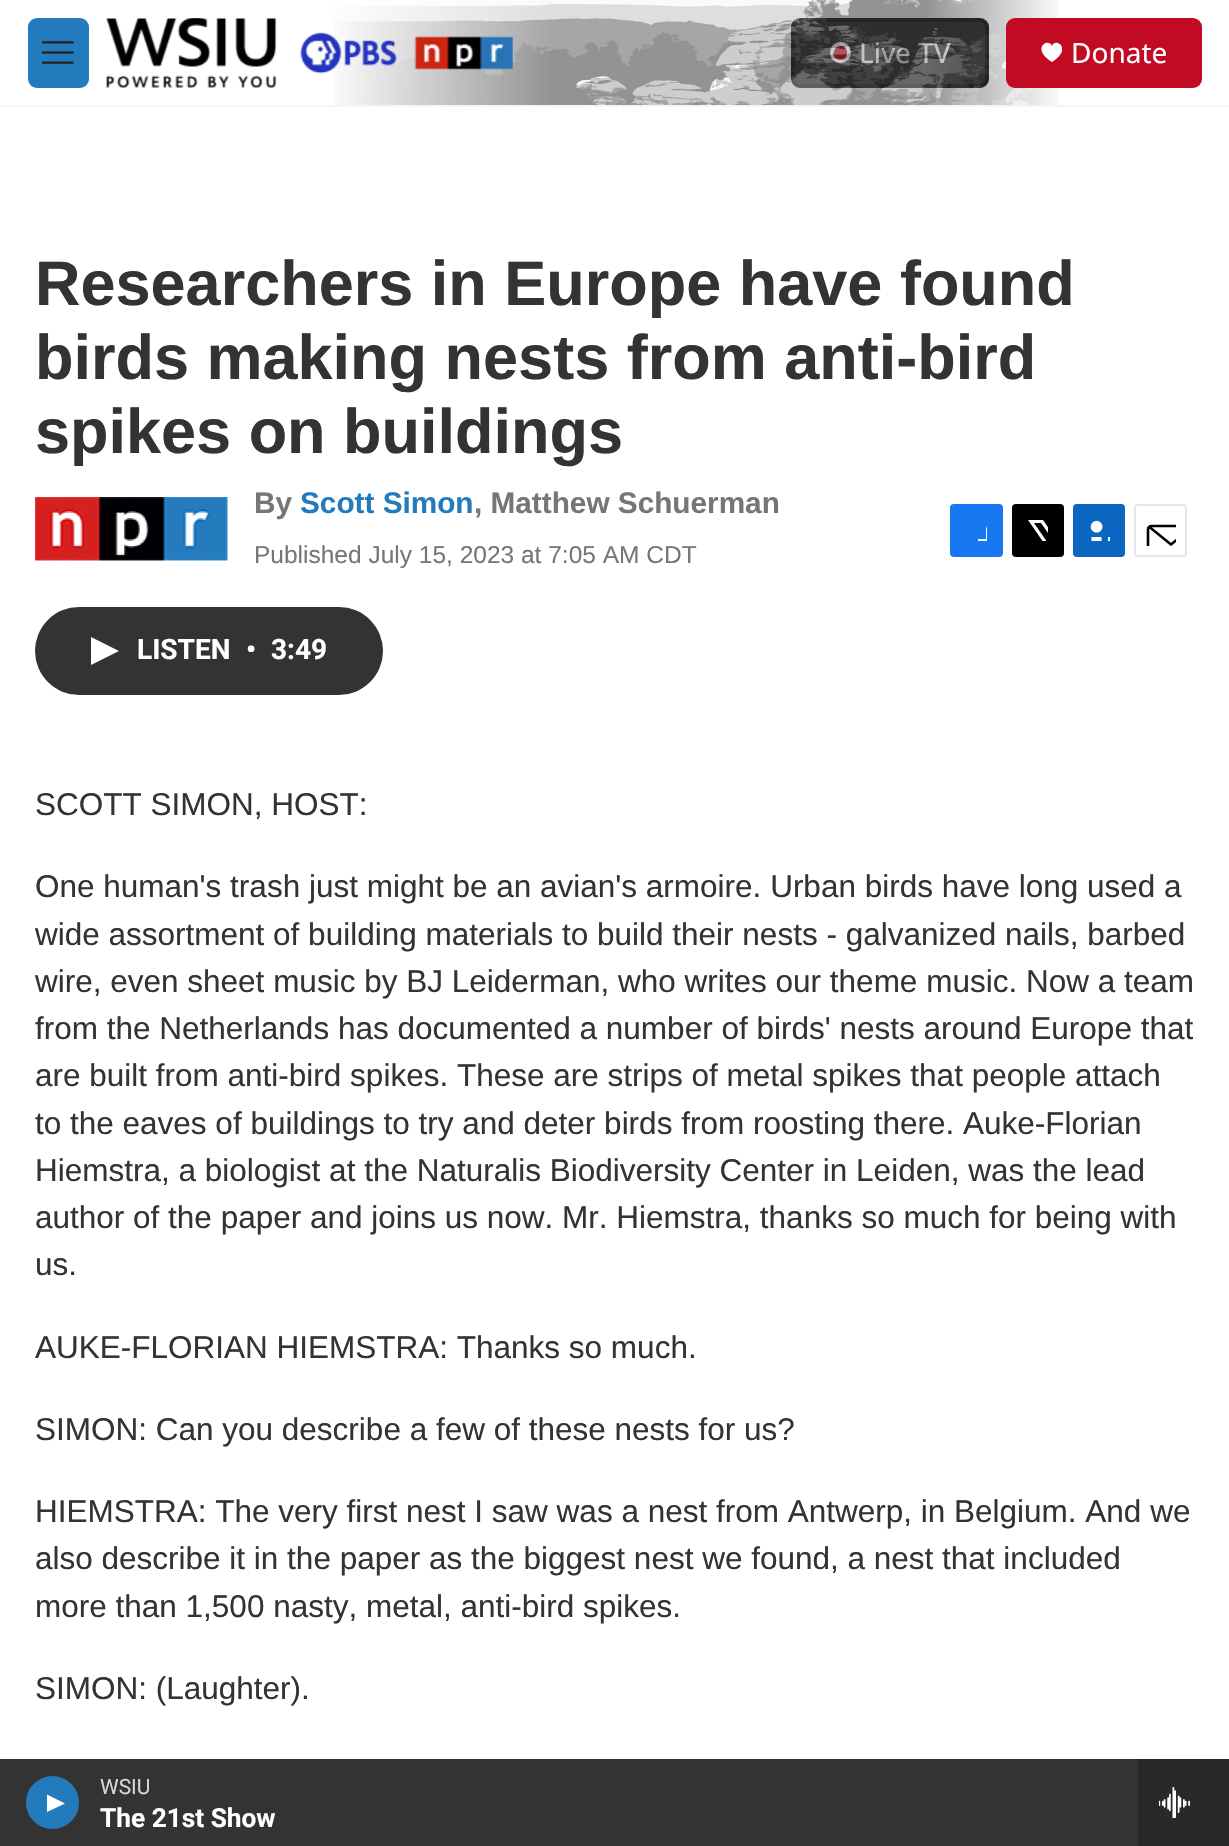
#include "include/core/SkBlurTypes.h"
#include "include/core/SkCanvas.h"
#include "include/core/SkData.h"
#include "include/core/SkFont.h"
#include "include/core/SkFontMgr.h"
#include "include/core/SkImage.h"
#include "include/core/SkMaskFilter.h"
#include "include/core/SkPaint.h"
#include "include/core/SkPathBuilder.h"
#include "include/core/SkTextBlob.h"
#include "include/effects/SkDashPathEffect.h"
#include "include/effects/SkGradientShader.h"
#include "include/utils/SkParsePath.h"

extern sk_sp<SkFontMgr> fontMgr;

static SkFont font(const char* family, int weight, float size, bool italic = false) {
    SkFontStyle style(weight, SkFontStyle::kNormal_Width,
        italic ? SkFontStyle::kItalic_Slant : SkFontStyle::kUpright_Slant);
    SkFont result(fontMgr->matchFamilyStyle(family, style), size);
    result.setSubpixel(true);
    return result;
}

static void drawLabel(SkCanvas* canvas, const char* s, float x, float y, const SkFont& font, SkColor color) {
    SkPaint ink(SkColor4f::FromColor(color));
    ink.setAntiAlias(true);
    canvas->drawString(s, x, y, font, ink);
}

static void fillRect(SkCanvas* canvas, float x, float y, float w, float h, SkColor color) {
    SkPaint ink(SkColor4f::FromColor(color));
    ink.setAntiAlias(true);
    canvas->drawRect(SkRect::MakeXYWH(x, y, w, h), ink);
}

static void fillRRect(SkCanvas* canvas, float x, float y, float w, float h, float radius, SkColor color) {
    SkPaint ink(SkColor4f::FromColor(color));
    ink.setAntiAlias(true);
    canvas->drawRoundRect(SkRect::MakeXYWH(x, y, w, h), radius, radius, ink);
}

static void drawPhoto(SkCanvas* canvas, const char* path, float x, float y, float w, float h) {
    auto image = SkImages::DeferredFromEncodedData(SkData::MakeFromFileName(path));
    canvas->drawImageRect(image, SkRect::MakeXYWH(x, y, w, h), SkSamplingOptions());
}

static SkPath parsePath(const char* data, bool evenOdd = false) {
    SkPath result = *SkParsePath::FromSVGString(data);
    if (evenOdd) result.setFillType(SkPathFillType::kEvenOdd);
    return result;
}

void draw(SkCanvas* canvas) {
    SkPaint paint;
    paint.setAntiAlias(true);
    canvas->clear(0xFFFFFFFF);
    fillRect(canvas, 0, 105, 1229, 2, 0xFFF5F5F5);
    paint.setColor(0xFF333333);
    canvas->drawRoundRect(SkRect::MakeXYWH(793, 20, 194, 66), 7, 7, paint);
    paint.setStroke(true);
    paint.setStrokeWidth(4);
    paint.setColor(0xFF212121);
    canvas->drawRoundRect(SkRect::MakeXYWH(793, 20, 194, 66), 7, 7, paint);
    paint.setColor(0xFFFFFFFF);
    canvas->drawCircle(840.5f, 52.5f, 8.5f, paint);
    paint.setStroke(false);
    paint.setColor(0xFFC20A22);
    canvas->drawPath(parsePath("M840.5 46C844 46 847 49 847 53C847 57 844 60 840 60C836.5 60 834 57.5 833 54.5C834 50.5 836.5 47 840.5 46Z"), paint);
    SkFont font1 = font("Noto Sans", 400, 28);
    drawLabel(canvas, "Live TV", 859, 63, font1, 0xFFEFEFEF);
    drawPhoto(canvas, "assets/img1.png", 334, 0, 725, 105);
    fillRRect(canvas, 28, 18, 61, 70, 9, 0xFF237BBD);
    drawPhoto(canvas, "assets/img2.png", 42, 41, 32, 23);
    drawPhoto(canvas, "assets/img3.png", 106, 18, 407, 70);
    fillRRect(canvas, 1006, 18, 196, 70, 9, 0xFFC20A22);
    canvas->save();
    canvas->clipRect(SkRect::MakeXYWH(1041, 42, 21, 21));
    paint.setColor(0xFFFFFFFF);
    canvas->drawPath(parsePath("M1052 46C1048.5 37 1030 48.5 1052 62C1073.5 48.5 1055 37 1052 46Z"), paint);
    canvas->restore();
    drawLabel(canvas, "Donate", 1071, 63, font1, 0xFFFFFFFF);
    fillRect(canvas, 0, 1759, 1138, 87, 0xFF333333);
    paint.setColor(0xFF237BBD);
    canvas->drawCircle(52.5f, 1802.5f, 26.5f, paint);
    paint.setColor(0xFFFFFFFF);
    canvas->drawPath(parsePath("M47 1794.5L65 1803.5L47 1812Z"), paint);
    SkFont font2 = font("Roboto", 400, 21);
    drawLabel(canvas, "WSIU", 100, 1794, font2, 0xFFD6D6D6);
    SkFont font3 = font("Roboto", 700, 26.25f);
    drawLabel(canvas, "The 21st Show", 100, 1827, font3, 0xFFFFFFFF);
    fillRect(canvas, 1138, 1759, 91, 87, 0xFF292929);
    drawPhoto(canvas, "assets/img4.png", 1159, 1787, 31, 31);
    SkFont font4 = font("Liberation Sans", 700, 63);
    drawLabel(canvas, "Researchers in Europe have found", 35, 305, font4, 0xFF333333);
    drawLabel(canvas, "birds making nests from anti-bird", 35, 379, font4, 0xFF333333);
    drawLabel(canvas, "spikes on buildings", 35, 453, font4, 0xFF333333);
    drawPhoto(canvas, "assets/img5.png", 35, 497, 193, 65);
    SkFont font5 = font("Liberation Sans", 700, 29.75f);
    drawLabel(canvas, "By", 254, 513, font5, 0xFF767676);
    drawLabel(canvas, "Scott Simon", 300, 513, font5, 0xFF237BBD);
    drawLabel(canvas, ", Matthew Schuerman", 474, 513, font5, 0xFF767676);
    SkFont font6 = font("Liberation Sans", 400, 24.5f);
    drawLabel(canvas, "Published July 15, 2023 at 7:05 AM CDT", 254, 563, font6, 0xFF767676);
    fillRRect(canvas, 950, 504, 53, 53, 4, 0xFF1778F2);
    canvas->save();
    canvas->clipRect(SkRect::MakeXYWH(966, 520, 21, 21));
    canvas->drawPath(parsePath("M995 557H986V548H978V539H986V529C988 520.5 996 520 1003 521V529C993.5 529 995 530.5 995 539H1003L1002 548H995Z"), paint);
    canvas->restore();
    fillRRect(canvas, 1012, 504, 52, 53, 4, 0xFF000000);
    canvas->save();
    canvas->clipRect(SkRect::MakeXYWH(1027, 520, 21, 21));
    canvas->drawPath(parsePath("M1058 542L1064 550.5C1064 552 1064 554 1063.5 555L1041 523H1034L1057.5 557H1053.5L1050 552L1045.5 557H1041L1048 549L1028 520H1043L1056 539L1064 530V535Z"), paint);
    canvas->restore();
    fillRRect(canvas, 1073, 504, 52, 53, 4, 0xFF0A66C1);
    drawPhoto(canvas, "assets/img6.png", 1090, 520, 20, 21);
    paint.setStroke(true);
    paint.setStrokeWidth(2);
    paint.setColor(0xFFE6E6E6);
    canvas->drawRoundRect(SkRect::MakeXYWH(1135, 505, 51, 51), 3, 3, paint);
    canvas->save();
    canvas->clipRect(SkRect::MakeXYWH(1145, 515, 31, 31));
    paint.setStrokeWidth(2.6f);
    paint.setStrokeCap(SkPaint::kRound_Cap);
    paint.setStrokeJoin(SkPaint::kRound_Join);
    paint.setColor(0xFF000000);
    canvas->drawPath(parsePath("M1193.5 553C1193.5 554.5 1192 556 1190 556H1151.5C1149.5 556 1148 554.5 1148 553V529.5C1148 527.5 1149.5 526 1151.5 526H1190C1192 526 1193.5 527.5 1193.5 529.5ZM1192 527L1171 544.5L1149.5 527"), paint);
    canvas->restore();
    fillRRect(canvas, 35, 607, 348, 88, 44, 0xFF333333);
    paint.setStroke(false);
    paint.setColor(0xFFFFFFFF);
    canvas->drawPath(parsePath("M91 637L119 651L91 665Z"), paint);
    SkFont font7 = font("Roboto", 700, 28);
    drawLabel(canvas, "LISTEN", 137, 659, font7, 0xFFFFFFFF);
    drawLabel(canvas, "•", 246, 659, font7, 0xFFFFFFFF);
    drawLabel(canvas, "3:49", 271, 659, font7, 0xFFFFFFFF);
    SkFont font8 = font("Liberation Sans", 400, 31.5f);
    drawLabel(canvas, "SCOTT SIMON, HOST:", 35, 815, font8, 0xFF333333);
    drawLabel(canvas, "One human's trash just might be an avian's armoire. Urban birds have long used a", 35, 897, font8, 0xFF333333);
    drawLabel(canvas, "wide assortment of building materials to build their nests - galvanized nails, barbed", 35, 945, font8, 0xFF333333);
    drawLabel(canvas, "wire, even sheet music by BJ Leiderman, who writes our theme music. Now a team", 35, 992, font8, 0xFF333333);
    drawLabel(canvas, "from the Netherlands has documented a number of birds' nests around Europe that", 35, 1039, font8, 0xFF333333);
    drawLabel(canvas, "are built from anti-bird spikes. These are strips of metal spikes that people attach", 35, 1086, font8, 0xFF333333);
    drawLabel(canvas, "to the eaves of buildings to try and deter birds from roosting there. Auke-Florian", 35, 1134, font8, 0xFF333333);
    drawLabel(canvas, "Hiemstra, a biologist at the Naturalis Biodiversity Center in Leiden, was the lead", 35, 1181, font8, 0xFF333333);
    drawLabel(canvas, "author of the paper and joins us now. Mr. Hiemstra, thanks so much for being with", 35, 1228, font8, 0xFF333333);
    drawLabel(canvas, "us.", 35, 1275, font8, 0xFF333333);
    drawLabel(canvas, "AUKE-FLORIAN HIEMSTRA: Thanks so much.", 35, 1358, font8, 0xFF333333);
    drawLabel(canvas, "SIMON: Can you describe a few of these nests for us?", 35, 1440, font8, 0xFF333333);
    drawLabel(canvas, "HIEMSTRA: The very first nest I saw was a nest from Antwerp, in Belgium. And we", 35, 1522, font8, 0xFF333333);
    drawLabel(canvas, "also describe it in the paper as the biggest nest we found, a nest that included", 35, 1569, font8, 0xFF333333);
    drawLabel(canvas, "more than 1,500 nasty, metal, anti-bird spikes.", 35, 1617, font8, 0xFF333333);
    drawLabel(canvas, "SIMON: (Laughter).", 35, 1699, font8, 0xFF333333);
}
